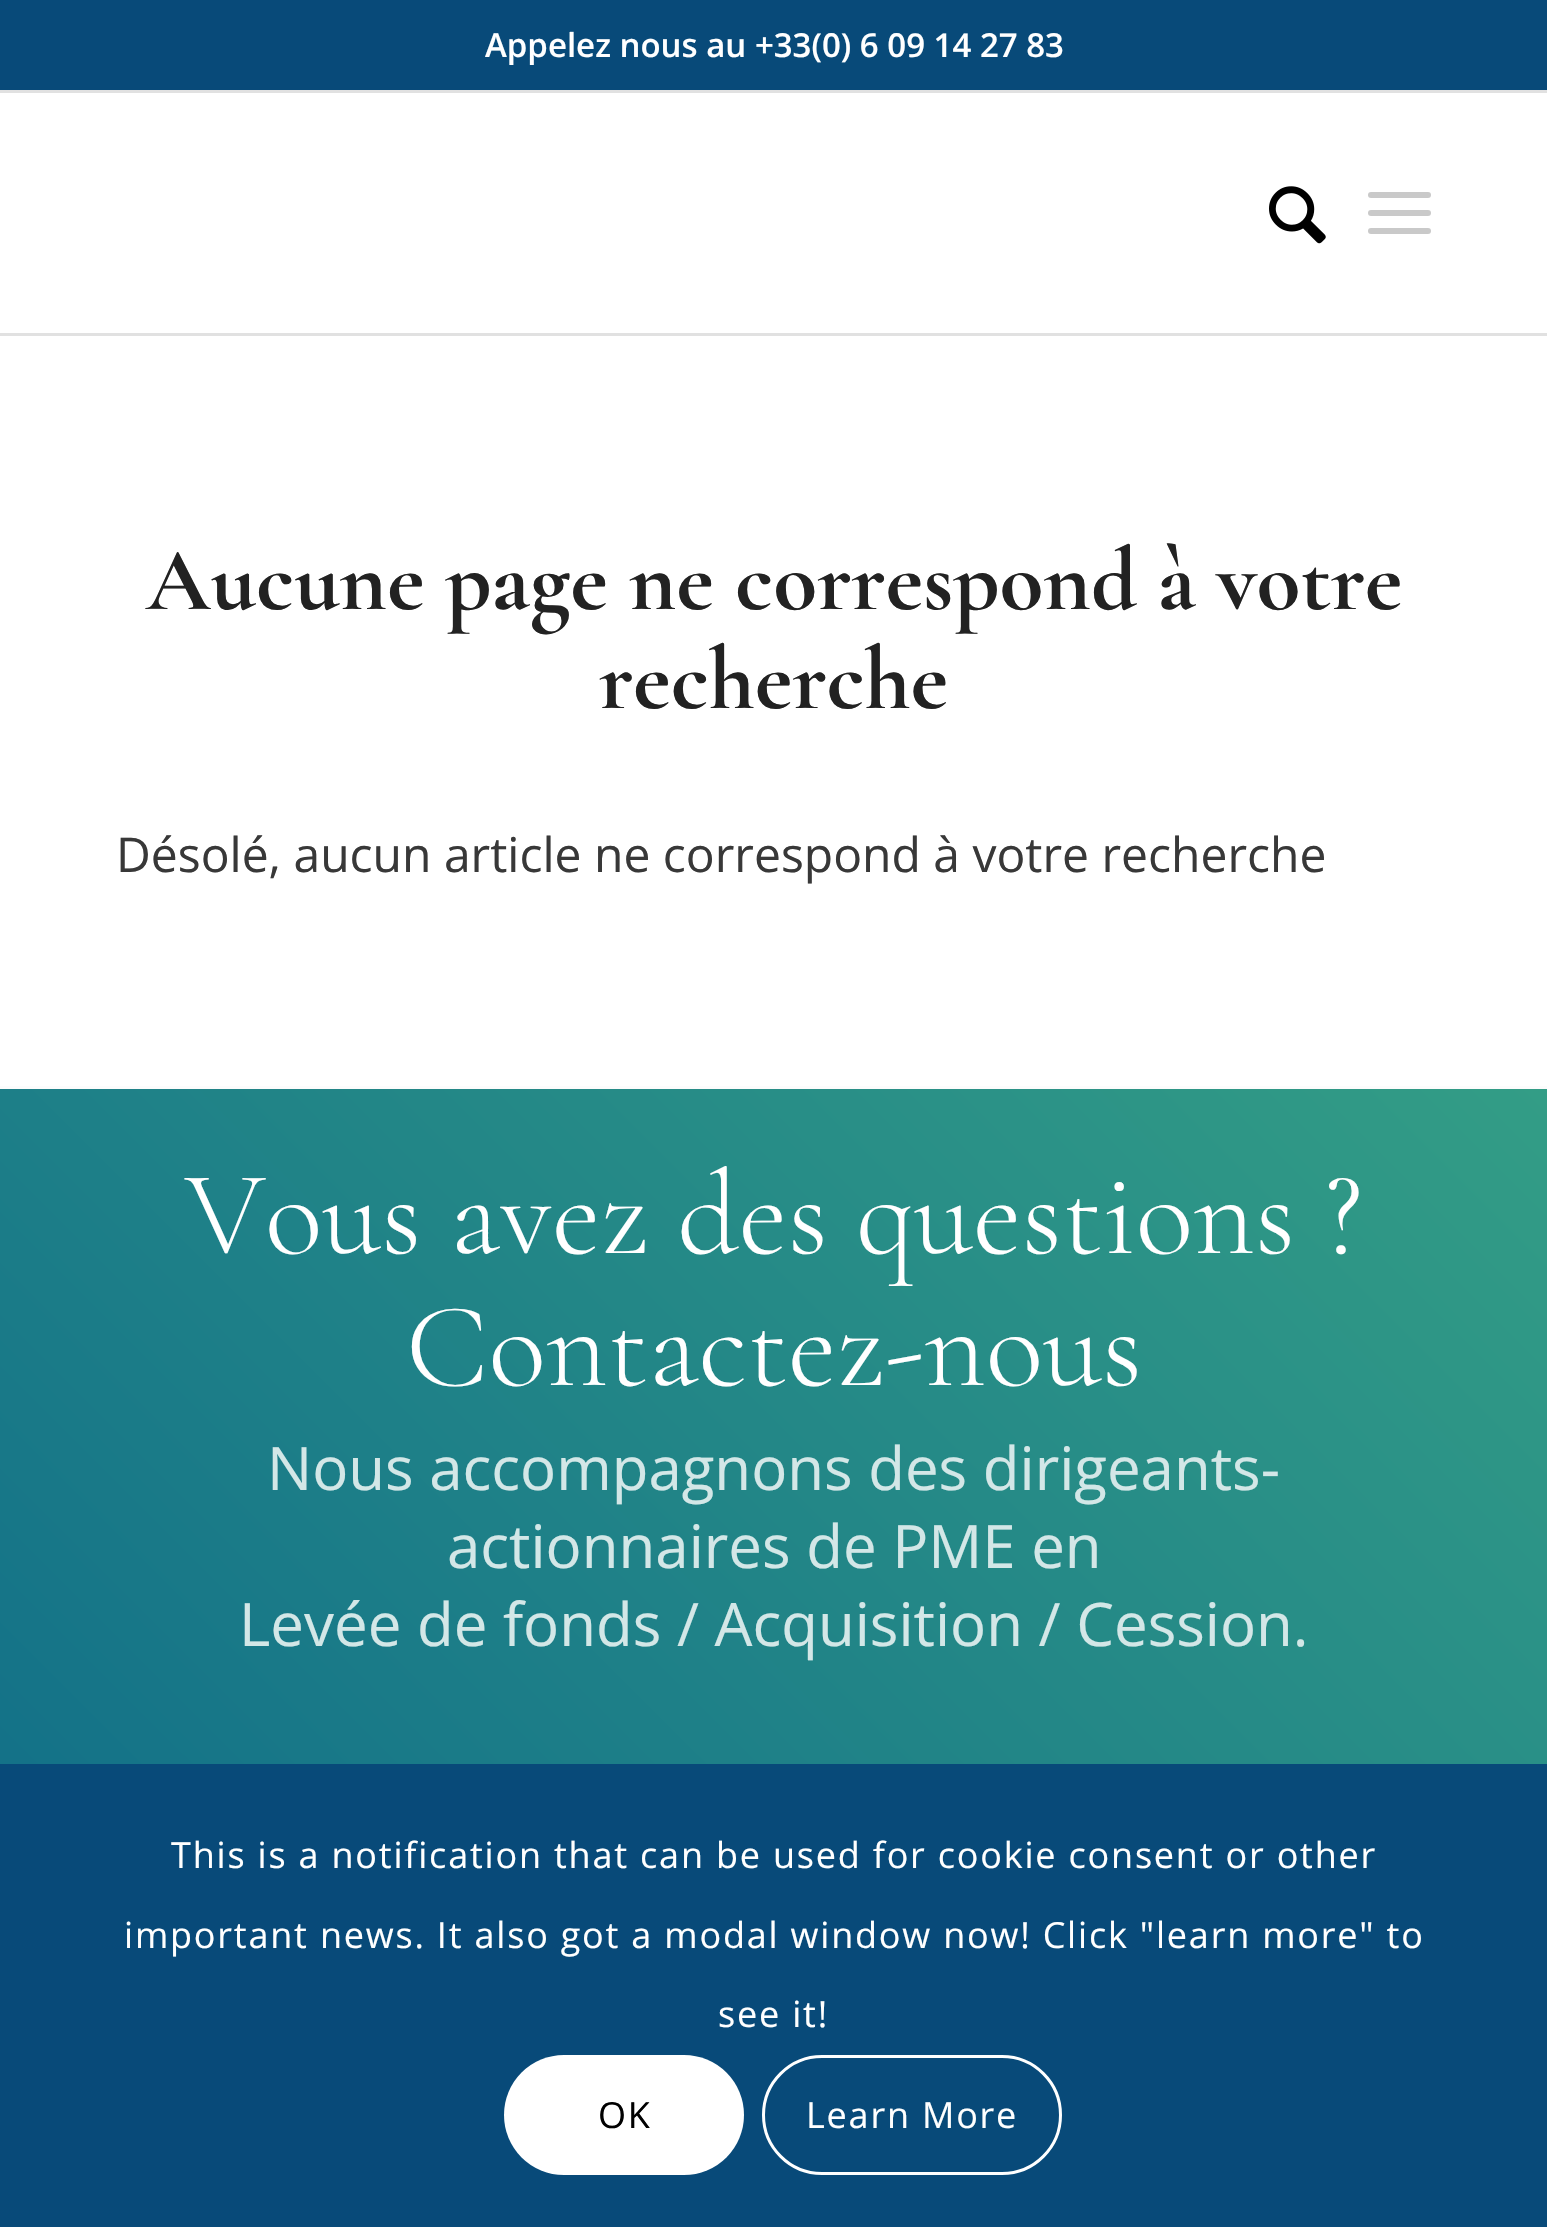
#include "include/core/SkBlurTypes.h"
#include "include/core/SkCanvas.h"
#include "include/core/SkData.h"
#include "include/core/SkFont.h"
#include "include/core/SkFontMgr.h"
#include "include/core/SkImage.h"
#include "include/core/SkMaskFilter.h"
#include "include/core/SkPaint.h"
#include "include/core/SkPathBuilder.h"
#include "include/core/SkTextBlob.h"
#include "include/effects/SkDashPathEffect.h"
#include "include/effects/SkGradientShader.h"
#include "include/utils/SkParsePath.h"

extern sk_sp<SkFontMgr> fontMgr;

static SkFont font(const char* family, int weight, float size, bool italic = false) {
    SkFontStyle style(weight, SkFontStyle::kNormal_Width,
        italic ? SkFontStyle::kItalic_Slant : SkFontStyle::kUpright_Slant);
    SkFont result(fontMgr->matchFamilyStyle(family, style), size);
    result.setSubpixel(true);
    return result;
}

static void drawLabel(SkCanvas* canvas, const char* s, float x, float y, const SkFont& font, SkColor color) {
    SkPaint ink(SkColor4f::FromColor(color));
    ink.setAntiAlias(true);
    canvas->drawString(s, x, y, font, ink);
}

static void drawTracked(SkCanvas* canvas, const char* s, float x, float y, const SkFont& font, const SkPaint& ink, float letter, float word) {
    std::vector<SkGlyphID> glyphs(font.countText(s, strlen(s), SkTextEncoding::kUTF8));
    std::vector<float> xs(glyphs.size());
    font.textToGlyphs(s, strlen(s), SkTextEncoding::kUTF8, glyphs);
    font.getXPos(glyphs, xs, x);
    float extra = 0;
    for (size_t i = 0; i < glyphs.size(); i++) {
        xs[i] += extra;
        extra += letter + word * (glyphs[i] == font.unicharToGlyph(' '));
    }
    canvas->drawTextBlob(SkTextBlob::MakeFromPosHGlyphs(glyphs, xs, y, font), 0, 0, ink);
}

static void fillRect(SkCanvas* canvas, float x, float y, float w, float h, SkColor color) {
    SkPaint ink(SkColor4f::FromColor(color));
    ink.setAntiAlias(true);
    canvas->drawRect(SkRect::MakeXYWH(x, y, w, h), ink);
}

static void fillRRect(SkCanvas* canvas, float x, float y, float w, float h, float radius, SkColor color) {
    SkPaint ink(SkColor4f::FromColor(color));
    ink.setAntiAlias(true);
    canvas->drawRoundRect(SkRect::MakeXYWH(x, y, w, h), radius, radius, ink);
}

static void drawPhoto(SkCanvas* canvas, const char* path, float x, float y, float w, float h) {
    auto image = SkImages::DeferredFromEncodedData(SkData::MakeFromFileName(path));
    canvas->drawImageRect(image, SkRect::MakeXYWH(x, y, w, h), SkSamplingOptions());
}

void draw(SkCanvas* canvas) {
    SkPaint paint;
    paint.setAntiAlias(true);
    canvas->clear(0xFFFFFFFF);
    fillRect(canvas, 0, 0, 1547, 90, 0xFF084A79);
    fillRect(canvas, 0, 90, 1547, 3, 0xFFE1E1E1);
    SkFont font1 = font("Open Sans", 600, 33);
    drawLabel(canvas, "Appelez nous au +33(0) 6 09 14 27 83", 485, 57, font1, 0xFFFFFFFF);
    fillRect(canvas, 0, 333, 1547, 3, 0xFFE1E1E1);
    drawPhoto(canvas, "assets/img1.png", 1269, 186, 57, 58);
    fillRRect(canvas, 1368, 210, 63, 6, 3, 0xFFC9C9C9);
    fillRRect(canvas, 1368, 192, 63, 6, 3, 0xFFC9C9C9);
    fillRRect(canvas, 1368, 228, 63, 6, 3, 0xFFC9C9C9);
    SkFont font2 = font("Cormorant Garamond", 700, 90);
    drawLabel(canvas, "Aucune page ne correspond à votre", 146, 609, font2, 0xFF222222);
    drawLabel(canvas, "recherche", 599, 708, font2, 0xFF222222);
    SkFont font3 = font("Open Sans", 400, 48);
    drawLabel(canvas, "Désolé, aucun article ne correspond à votre recherche", 116, 872, font3, 0xFF383838);
    fillRect(canvas, 0, 1086, 1547, 3, 0xFFFCFCFC);
    {
        const SkColor colors[] = {0xFF00578A, 0xFF339D86};
        const float stops[] = {0, 1};
        const SkPoint ends[] = {{-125, 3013}, {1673, 1214}};
        paint.setShader(SkGradientShader::MakeLinear(ends, colors, stops, 2, SkTileMode::kClamp));
        paint.setAlpha(255);
    }
    canvas->drawRect(SkRect::MakeXYWH(0, 1089, 1547, 675), paint);
    SkFont font4 = font("Cormorant Garamond", 300, 120);
    drawLabel(canvas, "Vous avez des questions ?", 185, 1253, font4, 0xFFFFFFFF);
    drawLabel(canvas, "Contactez-nous", 406, 1385, font4, 0xFFFFFFFF);
    SkFont font5 = font("Open Sans", 400, 60);
    drawLabel(canvas, "Nous accompagnons des dirigeants-", 267, 1490, font5, 0xFFD3E7E7);
    drawLabel(canvas, "actionnaires de PME en", 447, 1568, font5, 0xFFD3E7E7);
    drawLabel(canvas, "Levée de fonds / Acquisition / Cession.", 239, 1646, font5, 0xFFD3E7E7);
    fillRect(canvas, 0, 1764, 1547, 463, 0xFF084A79);
    SkFont font6 = font("Open Sans", 400, 36);
    paint.setShader(nullptr);
    paint.setColor(0xFFFFFFFF);
    drawTracked(canvas, "This is a notification that can be used for cookie consent or other", 171, 1868, font6, paint, 1.8f, 0);
    drawTracked(canvas, "important news. It also got a modal window now! Click \"learn more\" to", 124, 1948, font6, paint, 1.8f, 0);
    drawTracked(canvas, "see it!", 718, 2027, font6, paint, 1.8f, 0);
    fillRRect(canvas, 504, 2055, 240, 120, 60, 0xFFFFFFFF);
    paint.setColor(0xFF000000);
    drawTracked(canvas, "OK", 598, 2128, font6, paint, 1.8f, 0);
    paint.setStroke(true);
    paint.setStrokeWidth(3);
    paint.setColor(0xFFFFFFFF);
    canvas->drawRoundRect(SkRect::MakeXYWH(763.5f, 2056.5f, 297, 117), 58.5f, 58.5f, paint);
    paint.setStroke(false);
    drawTracked(canvas, "Learn More", 806, 2128, font6, paint, 1.8f, 0);
}
